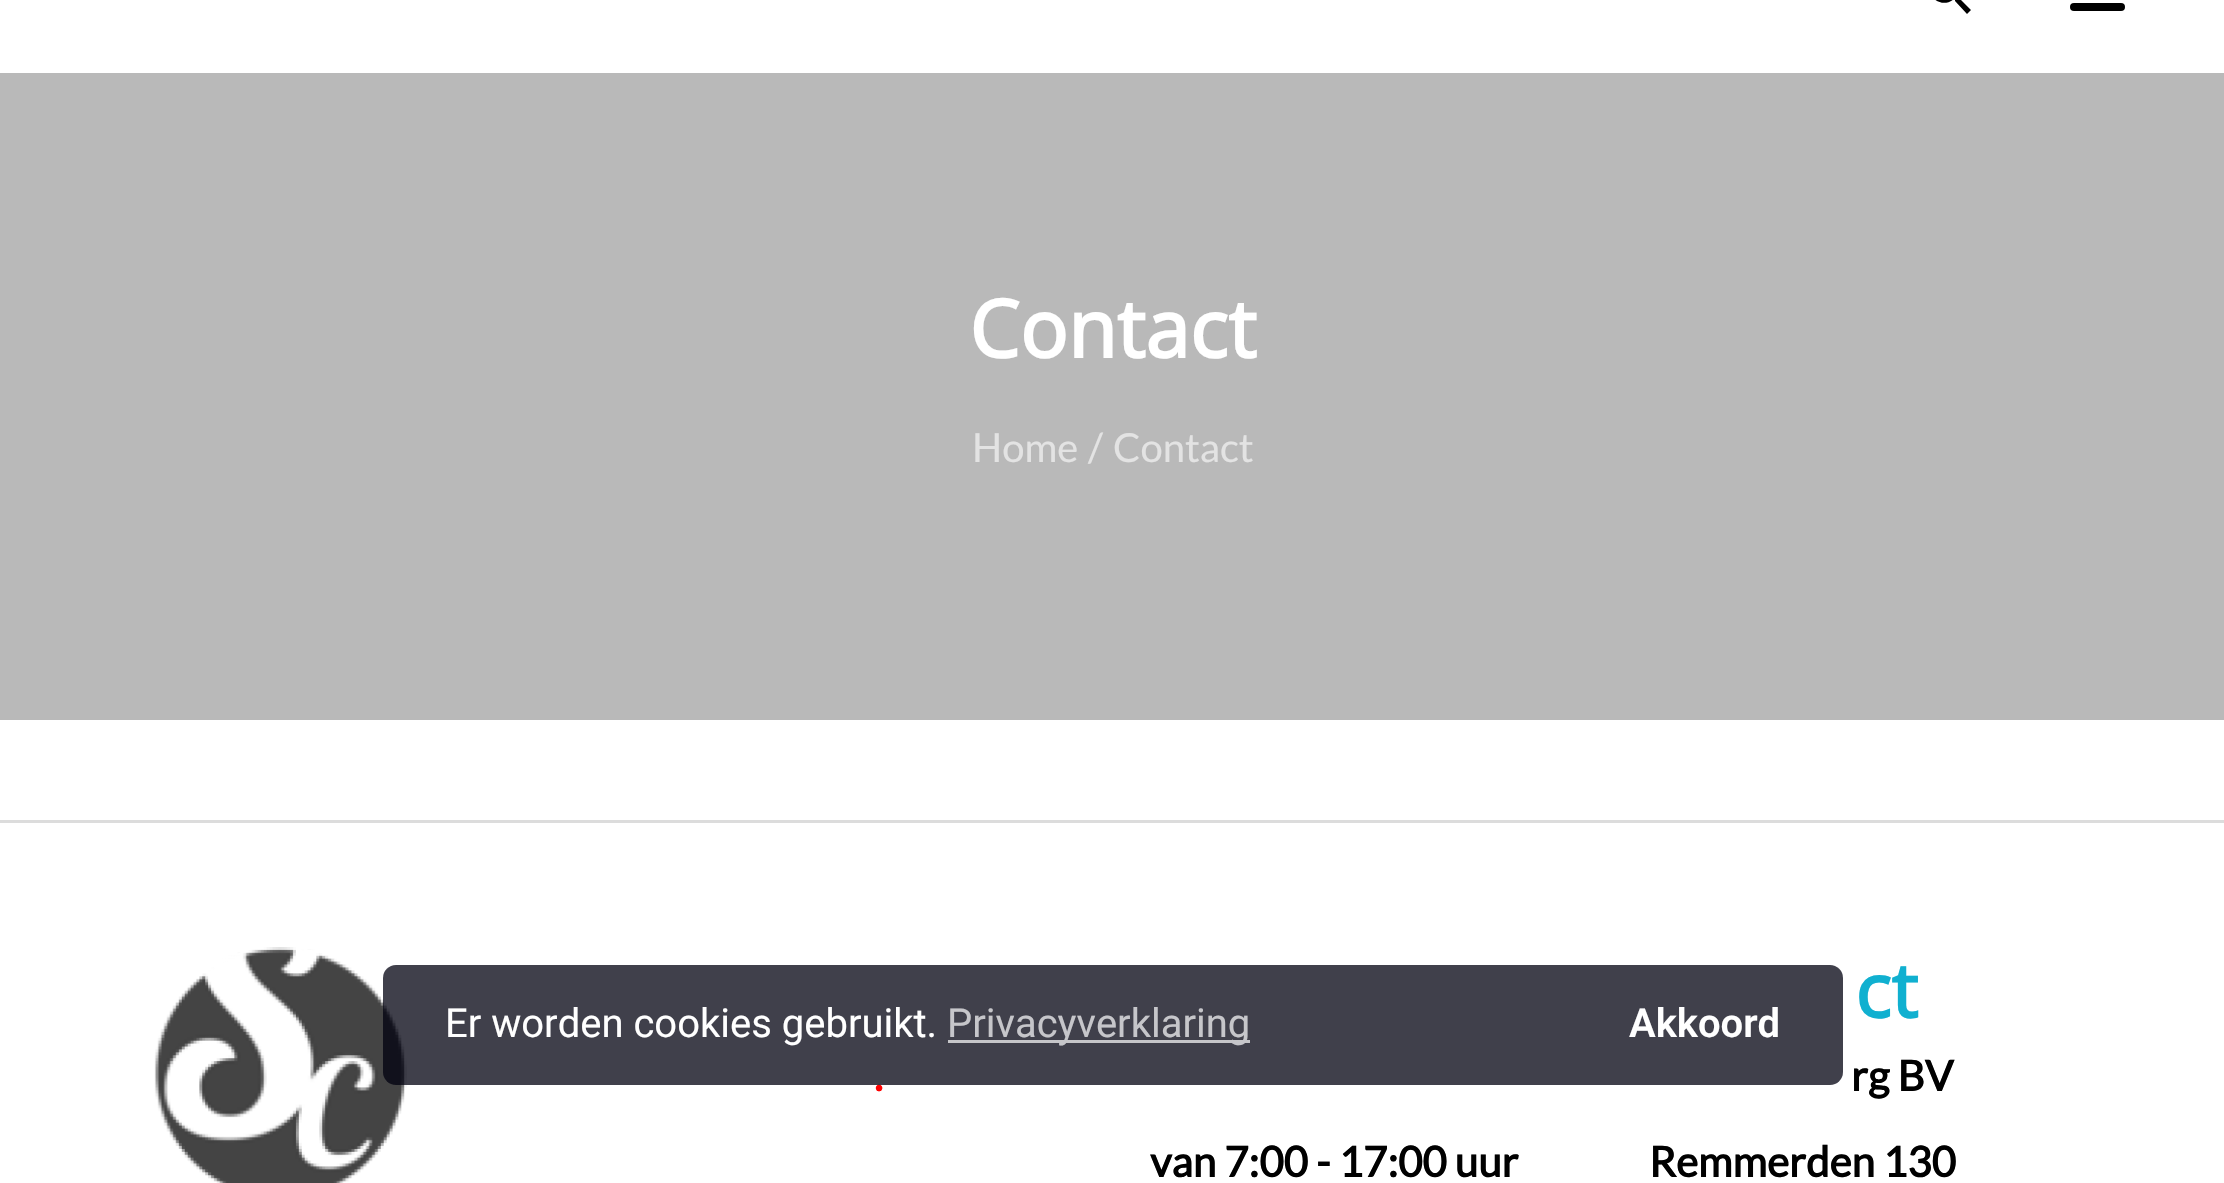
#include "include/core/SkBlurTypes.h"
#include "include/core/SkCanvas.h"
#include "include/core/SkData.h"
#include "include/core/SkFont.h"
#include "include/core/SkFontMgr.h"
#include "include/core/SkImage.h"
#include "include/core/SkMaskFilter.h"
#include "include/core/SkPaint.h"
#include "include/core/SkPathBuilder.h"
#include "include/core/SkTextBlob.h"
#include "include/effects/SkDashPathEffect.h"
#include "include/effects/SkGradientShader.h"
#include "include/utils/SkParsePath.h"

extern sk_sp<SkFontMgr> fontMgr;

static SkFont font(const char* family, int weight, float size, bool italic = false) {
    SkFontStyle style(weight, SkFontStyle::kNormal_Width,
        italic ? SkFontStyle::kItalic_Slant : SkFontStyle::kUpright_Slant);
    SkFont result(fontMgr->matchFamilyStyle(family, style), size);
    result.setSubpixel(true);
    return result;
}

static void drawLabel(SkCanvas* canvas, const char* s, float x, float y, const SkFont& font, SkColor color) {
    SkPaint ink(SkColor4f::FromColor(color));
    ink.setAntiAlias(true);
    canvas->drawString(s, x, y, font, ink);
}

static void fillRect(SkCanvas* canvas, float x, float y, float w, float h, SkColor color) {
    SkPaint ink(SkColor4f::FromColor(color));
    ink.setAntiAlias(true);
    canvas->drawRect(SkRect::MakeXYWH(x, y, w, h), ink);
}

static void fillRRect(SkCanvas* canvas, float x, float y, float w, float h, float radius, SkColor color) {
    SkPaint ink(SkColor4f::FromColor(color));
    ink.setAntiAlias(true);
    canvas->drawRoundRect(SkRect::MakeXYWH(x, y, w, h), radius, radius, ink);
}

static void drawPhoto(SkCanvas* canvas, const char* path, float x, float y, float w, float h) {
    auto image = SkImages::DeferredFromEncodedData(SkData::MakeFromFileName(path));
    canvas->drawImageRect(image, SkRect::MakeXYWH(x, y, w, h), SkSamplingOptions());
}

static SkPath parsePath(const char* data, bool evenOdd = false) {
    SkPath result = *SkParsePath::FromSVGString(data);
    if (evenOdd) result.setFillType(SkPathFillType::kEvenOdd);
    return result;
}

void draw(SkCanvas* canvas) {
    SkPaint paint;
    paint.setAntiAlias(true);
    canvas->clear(0xFFFFFFFF);
    paint.setColor(0xFF000000);
    canvas->drawPath(parsePath("M1936-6C1946 5 1962-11 1952-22C1941-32 1925-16 1936-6ZM1959-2L1971 10L1967 14L1955 1V-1H1954C1939 12 1918-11 1932-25C1947-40 1969-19 1956-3L1957-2Z"), paint);
    fillRRect(canvas, 2070, 3, 55, 8, 4, 0xFF000000);
    fillRect(canvas, 0, 73, 2224, 647, 0xFFB9B9B9);
    SkFont font1 = font("Open Sans", 700, 80);
    drawLabel(canvas, "Contact", 969, 358, font1, 0xFFFFFFFF);
    SkFont font2 = font("Lato", 400, 40);
    drawLabel(canvas, "Home", 972, 462, font2, 0xFFE3E3E3);
    drawLabel(canvas, "/", 1088, 462, font2, 0xFFE3E3E3);
    drawLabel(canvas, "Contact", 1113, 462, font2, 0xFFE3E3E3);
    fillRect(canvas, 0, 820, 2224, 3, 0xFFDCDCDC);
    drawPhoto(canvas, "assets/img1.png", 154, 947, 253, 236);
    SkFont font3 = font("Lato", 700, 42);
    drawLabel(canvas, ".", 874, 1091, font3, 0xFFFF0000);
    SkFont font4 = font("Open Sans", 700, 75);
    drawLabel(canvas, "ct", 1855, 1018, font4, 0xFF10B0D0);
    drawLabel(canvas, "rg BV", 1851, 1091, font3, 0xFF000000);
    drawLabel(canvas, "Remmerden 130", 1649, 1177, font3, 0xFF000000);
    drawLabel(canvas, "van 7:00 - 17:00 uur", 1150, 1177, font3, 0xFF000000);
    fillRRect(canvas, 383, 965, 1460, 120, 13, 0xBF00000F);
    SkFont font5 = font("Roboto", 400, 40);
    drawLabel(canvas, "Er worden cookies gebruikt.", 445, 1037, font5, 0xFFFFFFFF);
    fillRect(canvas, 948, 1040, 302, 3, 0xFFC6C6C9);
    drawLabel(canvas, "Privacyverklaring", 947, 1037, font5, 0xFFC6C6CA);
    SkFont font6 = font("Roboto", 600, 40);
    drawLabel(canvas, "Akkoord", 1629, 1037, font6, 0xFFFFFFFF);
}
